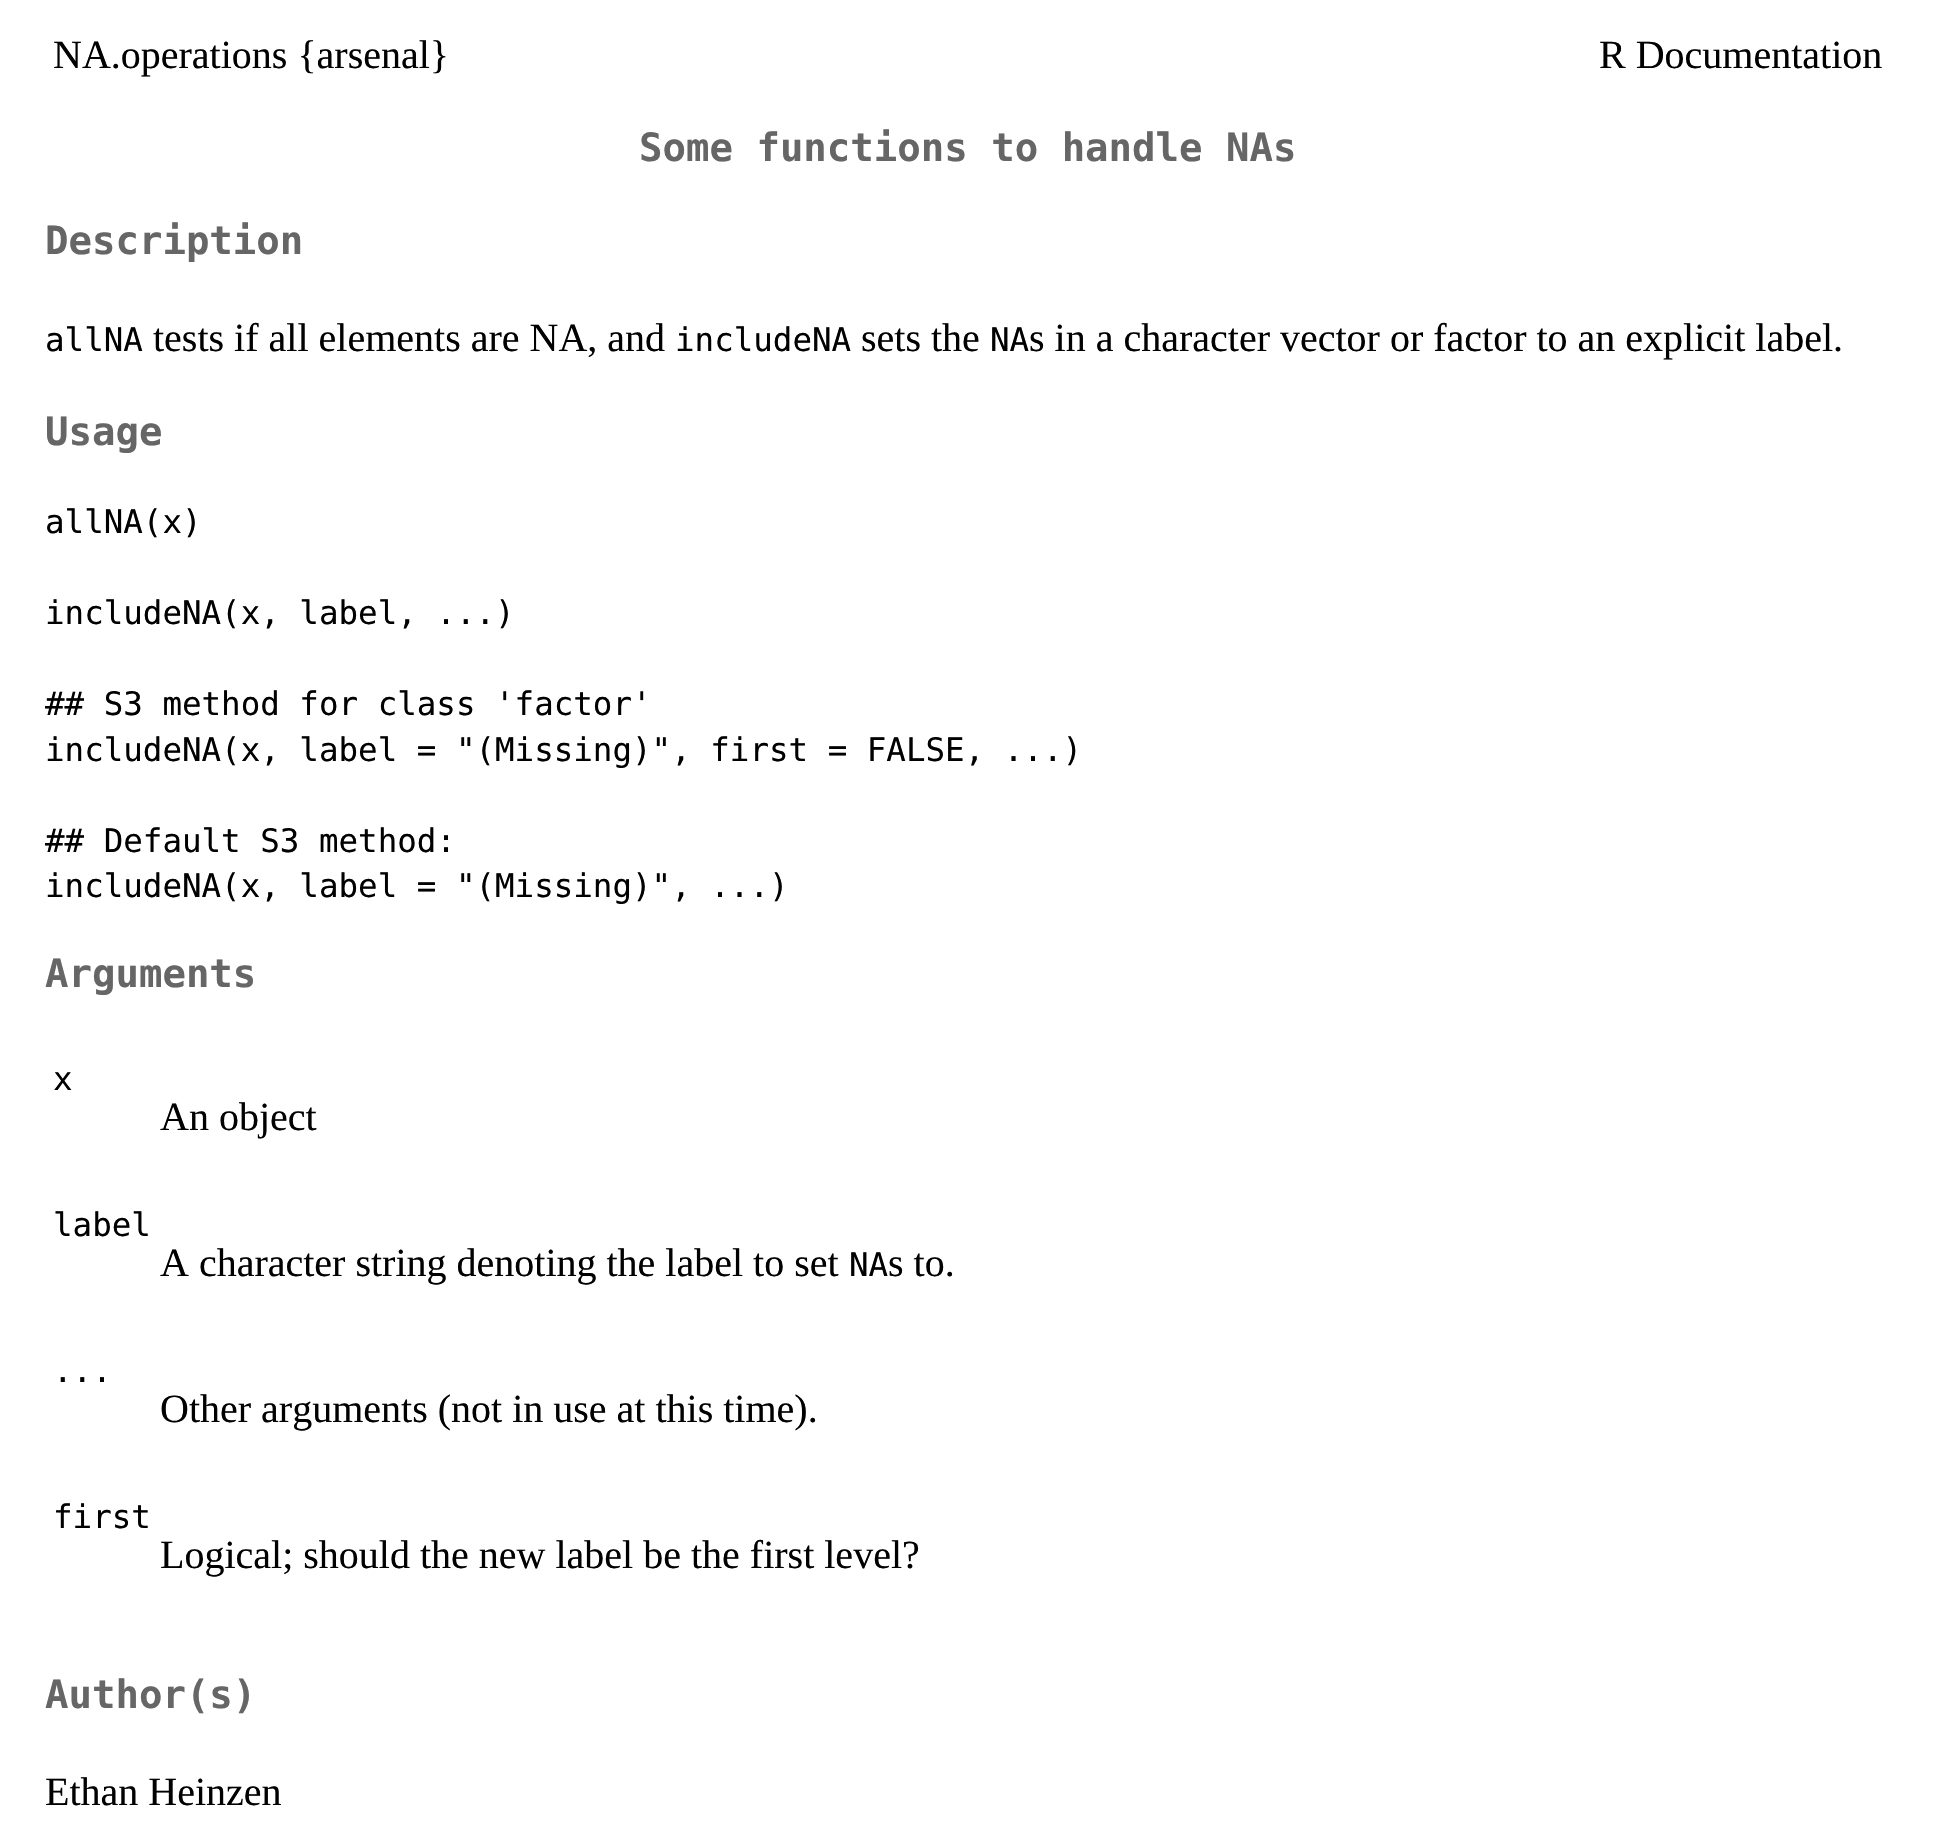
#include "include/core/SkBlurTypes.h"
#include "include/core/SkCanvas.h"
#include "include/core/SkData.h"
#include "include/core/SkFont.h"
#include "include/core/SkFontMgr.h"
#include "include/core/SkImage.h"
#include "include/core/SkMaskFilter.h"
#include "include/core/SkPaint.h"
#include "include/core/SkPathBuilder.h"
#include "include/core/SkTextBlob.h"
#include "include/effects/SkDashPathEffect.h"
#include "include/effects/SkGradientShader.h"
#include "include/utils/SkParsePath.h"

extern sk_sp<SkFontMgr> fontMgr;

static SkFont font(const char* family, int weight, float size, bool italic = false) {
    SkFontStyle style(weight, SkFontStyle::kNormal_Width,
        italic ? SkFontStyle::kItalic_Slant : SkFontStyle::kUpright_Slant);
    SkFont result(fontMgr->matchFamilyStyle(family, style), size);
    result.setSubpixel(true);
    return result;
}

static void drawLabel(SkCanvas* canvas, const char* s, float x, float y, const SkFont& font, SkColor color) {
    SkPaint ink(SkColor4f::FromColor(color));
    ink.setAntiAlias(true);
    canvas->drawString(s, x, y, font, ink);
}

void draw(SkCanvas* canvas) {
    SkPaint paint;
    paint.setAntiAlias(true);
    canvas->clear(0xFFFFFFFF);
    SkFont font1 = font("Liberation Serif", 400, 40);
    drawLabel(canvas, "NA.operations {arsenal}", 53, 68, font1, 0xFF000000);
    drawLabel(canvas, "R Documentation", 1599, 68, font1, 0xFF000000);
    SkFont font2 = font("DejaVu Sans Mono", 700, 39);
    drawLabel(canvas, "Some functions to handle NAs", 639, 161, font2, 0xFF666666);
    drawLabel(canvas, "Description", 45, 254, font2, 0xFF666666);
    SkFont font3 = font("DejaVu Sans Mono", 400, 32.5f);
    drawLabel(canvas, "allNA", 45, 351, font3, 0xFF000000);
    drawLabel(canvas, "tests if all elements are NA, and", 153, 351, font1, 0xFF000000);
    drawLabel(canvas, "includeNA", 675, 351, font3, 0xFF000000);
    drawLabel(canvas, "sets the", 861, 351, font1, 0xFF000000);
    drawLabel(canvas, "NA", 990, 351, font3, 0xFF000000);
    drawLabel(canvas, "s in a character vector or factor to an explicit label.", 1029, 351, font1, 0xFF000000);
    drawLabel(canvas, "Usage", 45, 445, font2, 0xFF666666);
    drawLabel(canvas, "allNA(x)", 45, 533, font3, 0xFF000000);
    drawLabel(canvas, "includeNA(x, label, ...)", 45, 624, font3, 0xFF000000);
    drawLabel(canvas, "## S3 method for class 'factor'", 45, 715, font3, 0xFF000000);
    drawLabel(canvas, "includeNA(x, label = \"(Missing)\", first = FALSE, ...)", 45, 761, font3, 0xFF000000);
    drawLabel(canvas, "## Default S3 method:", 45, 852, font3, 0xFF000000);
    drawLabel(canvas, "includeNA(x, label = \"(Missing)\", ...)", 45, 897, font3, 0xFF000000);
    drawLabel(canvas, "Arguments", 45, 987, font2, 0xFF666666);
    drawLabel(canvas, "x", 53, 1090, font3, 0xFF000000);
    drawLabel(canvas, "An object", 160, 1130, font1, 0xFF000000);
    drawLabel(canvas, "label", 53, 1236, font3, 0xFF000000);
    drawLabel(canvas, "A character string denoting the label to set", 160, 1276, font1, 0xFF000000);
    drawLabel(canvas, "NA", 849, 1276, font3, 0xFF000000);
    drawLabel(canvas, "s to.", 888, 1276, font1, 0xFF000000);
    drawLabel(canvas, "...", 53, 1382, font3, 0xFF000000);
    drawLabel(canvas, "Other arguments (not in use at this time).", 160, 1422, font1, 0xFF000000);
    drawLabel(canvas, "first", 53, 1528, font3, 0xFF000000);
    drawLabel(canvas, "Logical; should the new label be the first level?", 160, 1568, font1, 0xFF000000);
    drawLabel(canvas, "Author(s)", 45, 1708, font2, 0xFF666666);
    drawLabel(canvas, "Ethan Heinzen", 45, 1805, font1, 0xFF000000);
}
